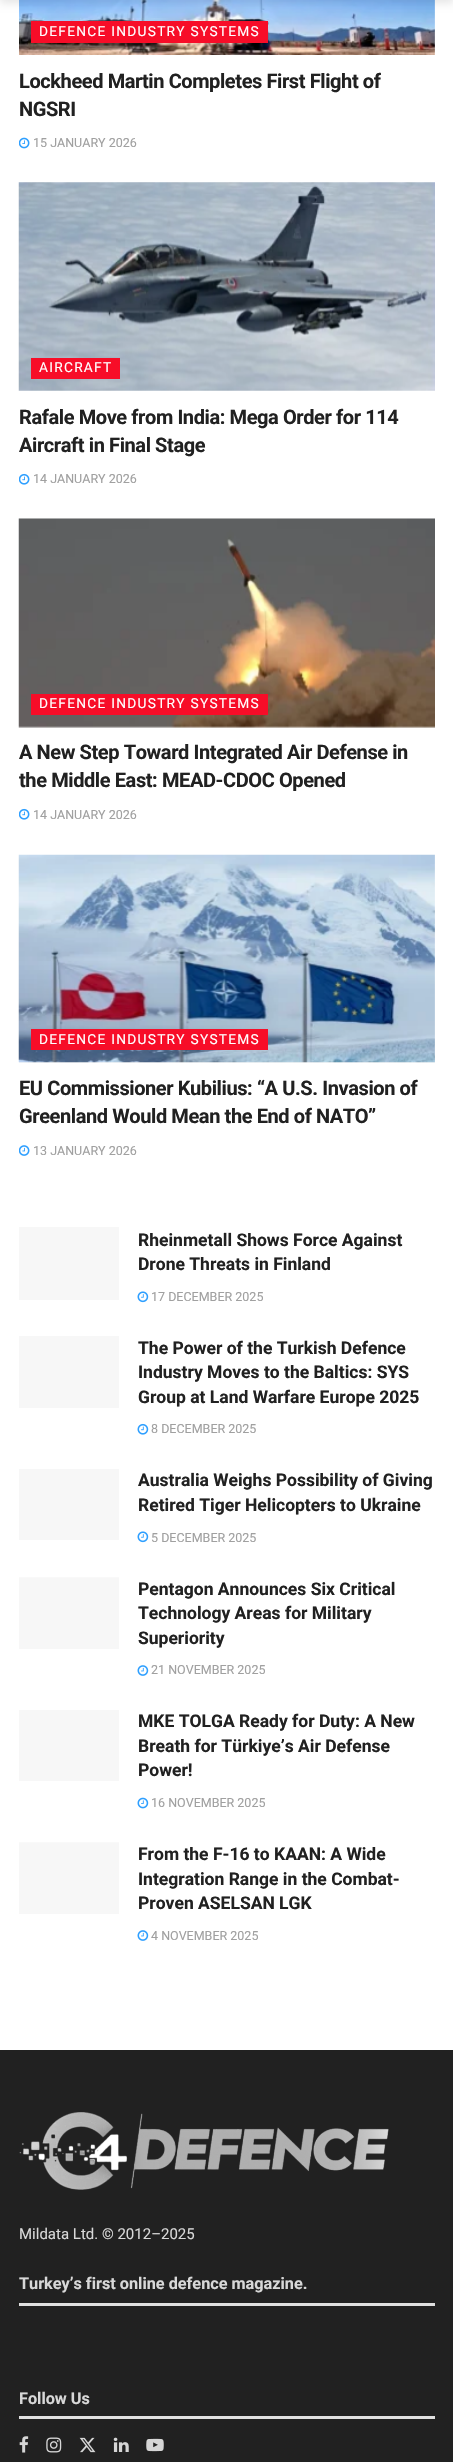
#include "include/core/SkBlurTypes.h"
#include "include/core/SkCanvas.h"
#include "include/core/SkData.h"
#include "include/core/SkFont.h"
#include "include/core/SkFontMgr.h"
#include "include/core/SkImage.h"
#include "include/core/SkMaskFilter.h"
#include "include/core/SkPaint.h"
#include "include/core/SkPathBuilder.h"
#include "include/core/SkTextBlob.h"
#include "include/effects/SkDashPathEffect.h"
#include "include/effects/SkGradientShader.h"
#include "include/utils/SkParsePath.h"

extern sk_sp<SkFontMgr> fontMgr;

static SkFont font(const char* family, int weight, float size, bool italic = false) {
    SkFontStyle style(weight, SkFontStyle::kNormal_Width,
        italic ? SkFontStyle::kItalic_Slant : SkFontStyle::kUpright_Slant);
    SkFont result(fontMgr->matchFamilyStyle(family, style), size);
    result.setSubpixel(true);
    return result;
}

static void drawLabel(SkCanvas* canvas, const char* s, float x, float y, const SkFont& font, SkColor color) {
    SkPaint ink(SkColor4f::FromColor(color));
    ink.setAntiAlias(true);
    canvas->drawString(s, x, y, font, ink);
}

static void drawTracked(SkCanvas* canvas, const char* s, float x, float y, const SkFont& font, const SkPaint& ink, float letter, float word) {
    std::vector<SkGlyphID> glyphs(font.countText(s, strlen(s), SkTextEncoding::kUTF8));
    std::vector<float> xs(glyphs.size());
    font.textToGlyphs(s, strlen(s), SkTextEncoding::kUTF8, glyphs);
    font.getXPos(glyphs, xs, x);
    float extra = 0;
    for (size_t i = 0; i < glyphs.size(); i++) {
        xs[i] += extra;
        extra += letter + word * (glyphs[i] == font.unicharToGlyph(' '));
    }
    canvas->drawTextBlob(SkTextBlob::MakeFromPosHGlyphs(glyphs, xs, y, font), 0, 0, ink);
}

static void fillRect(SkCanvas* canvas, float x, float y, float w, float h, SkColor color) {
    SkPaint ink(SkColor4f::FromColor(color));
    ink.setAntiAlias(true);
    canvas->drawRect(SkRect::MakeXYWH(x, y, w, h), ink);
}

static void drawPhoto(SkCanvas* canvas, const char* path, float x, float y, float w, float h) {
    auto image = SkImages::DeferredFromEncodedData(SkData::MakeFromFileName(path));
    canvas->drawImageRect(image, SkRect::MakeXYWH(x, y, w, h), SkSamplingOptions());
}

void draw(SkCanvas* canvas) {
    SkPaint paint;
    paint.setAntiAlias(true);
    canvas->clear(0xFFFFFFFF);
    drawPhoto(canvas, "assets/img1.png", 19, 0, 416, 55);
    paint.setColor(0x1A000000);
    paint.setMaskFilter(SkMaskFilter::MakeBlur(kNormal_SkBlurStyle, 4));
    canvas->drawRect(SkRect::MakeXYWH(0, -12, 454, 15), paint);
    paint.setMaskFilter(nullptr);
    fillRect(canvas, 31, 21, 237, 22, 0xFFF70D28);
    SkFont font1 = font("Roboto", 400, 13.75f);
    paint.setColor(0xFFFFFFFF);
    drawTracked(canvas, "DEFENCE INDUSTRY SYSTEMS", 39, 36, font1, paint, 1.25f, 0);
    SkFont font2 = font("Roboto", 700, 20);
    paint.setColor(0xFF212121);
    drawTracked(canvas, "Lockheed Martin Completes First Flight of", 19, 88, font2, paint, -0.4f, 0);
    drawTracked(canvas, "NGSRI", 19, 116, font2, paint, -0.4f, 0);
    drawPhoto(canvas, "assets/img2.png", 19, 137, 11, 12);
    SkFont font3 = font("Roboto", 400, 12.5f);
    drawLabel(canvas, "15 JANUARY 2026", 33, 147, font3, 0xFFA0A0A0);
    drawPhoto(canvas, "assets/img4.png", 19, 182, 416, 1);
    drawPhoto(canvas, "assets/img3.png", 18, 182, 417, 209);
    fillRect(canvas, 31, 358, 89, 21, 0xFFF70D28);
    paint.setColor(0xFFFFFFFF);
    drawTracked(canvas, "AIRCRAFT", 39, 372, font1, paint, 1.25f, 0);
    paint.setColor(0xFF212121);
    drawTracked(canvas, "Rafale Move from India: Mega Order for 114", 19, 424, font2, paint, -0.4f, 0);
    drawTracked(canvas, "Aircraft in Final Stage", 19, 452, font2, paint, -0.4f, 0);
    drawPhoto(canvas, "assets/img5.png", 19, 473, 11, 12);
    drawLabel(canvas, "14 JANUARY 2026", 33, 483, font3, 0xFFA0A0A0);
    fillRect(canvas, 19, 726, 416, 2, 0xFFF7F7F7);
    drawPhoto(canvas, "assets/img7.png", 19, 518, 416, 1);
    drawPhoto(canvas, "assets/img6.png", 18, 518, 417, 210);
    fillRect(canvas, 31, 694, 237, 21, 0xFFF70D28);
    paint.setColor(0xFFFFFFFF);
    drawTracked(canvas, "DEFENCE INDUSTRY SYSTEMS", 39, 708, font1, paint, 1.25f, 0);
    paint.setColor(0xFF212121);
    drawTracked(canvas, "A New Step Toward Integrated Air Defense in", 19, 759, font2, paint, -0.4f, 0);
    drawTracked(canvas, "the Middle East: MEAD-CDOC Opened", 19, 787, font2, paint, -0.4f, 0);
    drawPhoto(canvas, "assets/img5.png", 19, 808, 11, 12);
    drawLabel(canvas, "14 JANUARY 2026", 33, 819, font3, 0xFFA0A0A0);
    fillRect(canvas, 19, 855, 416, 208, 0xFFF7F7F7);
    drawPhoto(canvas, "assets/img8.png", 18, 854, 417, 209);
    fillRect(canvas, 31, 1029, 237, 21, 0xFFF70D28);
    paint.setColor(0xFFFFFFFF);
    drawTracked(canvas, "DEFENCE INDUSTRY SYSTEMS", 39, 1044, font1, paint, 1.25f, 0);
    paint.setColor(0xFF212121);
    drawTracked(canvas, "EU Commissioner Kubilius: “A U.S. Invasion of", 19, 1095, font2, paint, -0.4f, 0);
    drawTracked(canvas, "Greenland Would Mean the End of NATO”", 19, 1123, font2, paint, -0.4f, 0);
    drawPhoto(canvas, "assets/img9.png", 19, 1145, 11, 11);
    drawLabel(canvas, "13 JANUARY 2026", 33, 1155, font3, 0xFFA0A0A0);
    fillRect(canvas, 19, 1227, 100, 73, 0xFFF7F7F7);
    SkFont font4 = font("Roboto", 700, 17.5f);
    drawLabel(canvas, "Rheinmetall Shows Force Against", 138, 1246, font4, 0xFF212121);
    drawLabel(canvas, "Drone Threats in Finland", 138, 1270, font4, 0xFF212121);
    drawPhoto(canvas, "assets/img10.png", 137, 1291, 12, 12);
    drawLabel(canvas, "17 DECEMBER 2025", 151, 1301, font3, 0xFFA0A0A0);
    fillRect(canvas, 19, 1336, 100, 72, 0xFFF7F7F7);
    drawLabel(canvas, "The Power of the Turkish Defence", 138, 1354, font4, 0xFF212121);
    drawLabel(canvas, "Industry Moves to the Baltics: SYS", 138, 1378, font4, 0xFF212121);
    drawLabel(canvas, "Group at Land Warfare Europe 2025", 138, 1403, font4, 0xFF212121);
    drawPhoto(canvas, "assets/img11.png", 137, 1423, 12, 12);
    drawLabel(canvas, "8 DECEMBER 2025", 151, 1433, font3, 0xFFA0A0A0);
    fillRect(canvas, 19, 1469, 100, 71, 0xFFF7F7F7);
    drawLabel(canvas, "Australia Weighs Possibility of Giving", 138, 1486, font4, 0xFF212121);
    drawLabel(canvas, "Retired Tiger Helicopters to Ukraine", 138, 1511, font4, 0xFF212121);
    drawPhoto(canvas, "assets/img10.png", 137, 1531, 12, 12);
    drawLabel(canvas, "5 DECEMBER 2025", 151, 1542, font3, 0xFFA0A0A0);
    fillRect(canvas, 19, 1578, 100, 71, 0xFFF7F7F7);
    fillRect(canvas, 19, 1577, 100, 1, 0xFFF9F9F9);
    drawLabel(canvas, "Pentagon Announces Six Critical", 138, 1595, font4, 0xFF212121);
    drawLabel(canvas, "Technology Areas for Military", 138, 1619, font4, 0xFF212121);
    drawLabel(canvas, "Superiority", 138, 1644, font4, 0xFF212121);
    drawPhoto(canvas, "assets/img12.png", 137, 1665, 12, 11);
    drawLabel(canvas, "21 NOVEMBER 2025", 151, 1674, font3, 0xFFA0A0A0);
    fillRect(canvas, 19, 1710, 100, 71, 0xFFF7F7F7);
    drawLabel(canvas, "MKE TOLGA Ready for Duty: A New", 138, 1727, font4, 0xFF212121);
    drawLabel(canvas, "Breath for Türkiye’s Air Defense", 138, 1752, font4, 0xFF212121);
    drawLabel(canvas, "Power!", 138, 1776, font4, 0xFF212121);
    drawPhoto(canvas, "assets/img13.png", 137, 1797, 12, 12);
    drawLabel(canvas, "16 NOVEMBER 2025", 151, 1807, font3, 0xFFA0A0A0);
    fillRect(canvas, 19, 1843, 100, 71, 0xFFF7F7F7);
    fillRect(canvas, 19, 1842, 100, 1, 0xFFF9F9F9);
    drawLabel(canvas, "From the F-16 to KAAN: A Wide", 138, 1860, font4, 0xFF212121);
    drawLabel(canvas, "Integration Range in the Combat-", 138, 1885, font4, 0xFF212121);
    drawLabel(canvas, "Proven ASELSAN LGK", 138, 1909, font4, 0xFF212121);
    drawPhoto(canvas, "assets/img12.png", 137, 1930, 12, 11);
    drawLabel(canvas, "4 NOVEMBER 2025", 151, 1940, font3, 0xFFA0A0A0);
    fillRect(canvas, 0, 2050, 453, 412, 0xFF212121);
    drawPhoto(canvas, "assets/img14.png", 19, 2112, 370, 78);
    SkFont font5 = font("Roboto", 400, 15);
    drawLabel(canvas, "Mildata Ltd. © 2012–2025", 19, 2239, font5, 0xFFD8D8D8);
    fillRect(canvas, 19, 2303, 416, 3, 0xFFE0E0E0);
    SkFont font6 = font("Roboto", 700, 16.25f);
    drawLabel(canvas, "Turkey’s first online defence magazine.", 19, 2289, font6, 0xFFD8D8D8);
    fillRect(canvas, 19, 2416, 416, 3, 0xFFE0E0E0);
    drawLabel(canvas, "Follow Us", 19, 2404, font6, 0xFFD8D8D8);
    drawPhoto(canvas, "assets/img15.png", 19, 2436, 10, 17);
    drawPhoto(canvas, "assets/img16.png", 46, 2437, 16, 16);
    drawPhoto(canvas, "assets/img17.png", 79, 2437, 17, 16);
    drawPhoto(canvas, "assets/img18.png", 113, 2437, 16, 15);
    drawPhoto(canvas, "assets/img19.png", 146, 2438, 18, 14);
}
